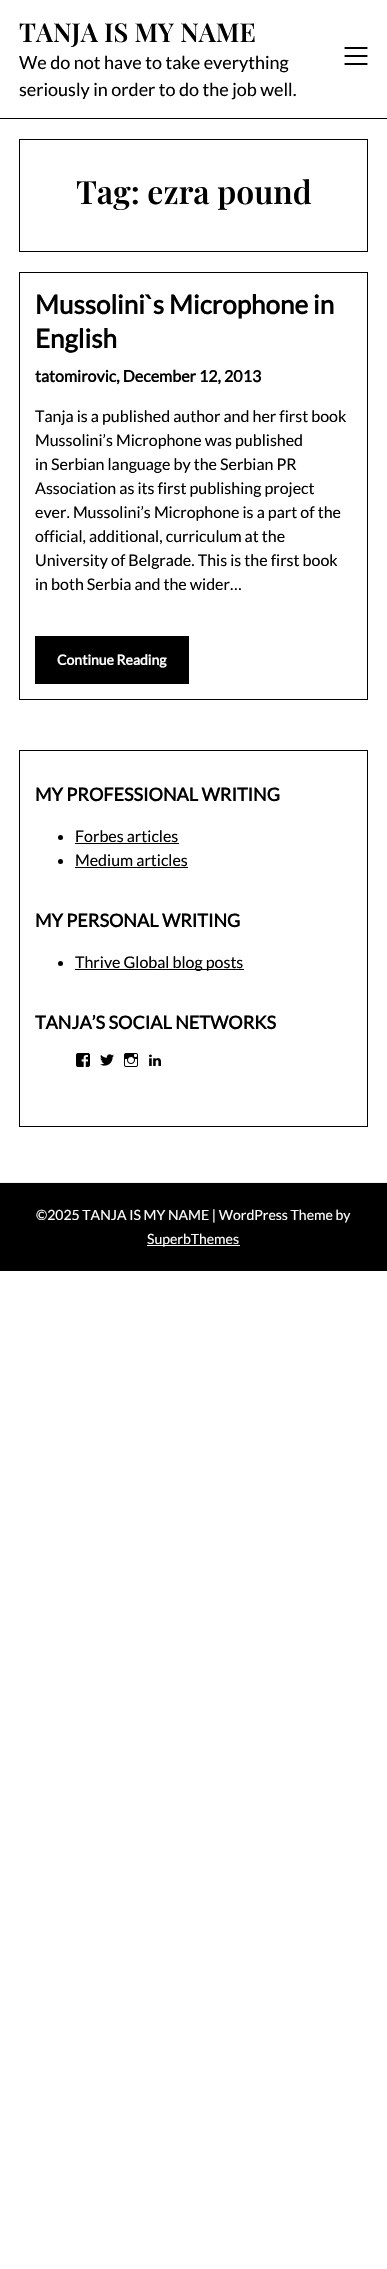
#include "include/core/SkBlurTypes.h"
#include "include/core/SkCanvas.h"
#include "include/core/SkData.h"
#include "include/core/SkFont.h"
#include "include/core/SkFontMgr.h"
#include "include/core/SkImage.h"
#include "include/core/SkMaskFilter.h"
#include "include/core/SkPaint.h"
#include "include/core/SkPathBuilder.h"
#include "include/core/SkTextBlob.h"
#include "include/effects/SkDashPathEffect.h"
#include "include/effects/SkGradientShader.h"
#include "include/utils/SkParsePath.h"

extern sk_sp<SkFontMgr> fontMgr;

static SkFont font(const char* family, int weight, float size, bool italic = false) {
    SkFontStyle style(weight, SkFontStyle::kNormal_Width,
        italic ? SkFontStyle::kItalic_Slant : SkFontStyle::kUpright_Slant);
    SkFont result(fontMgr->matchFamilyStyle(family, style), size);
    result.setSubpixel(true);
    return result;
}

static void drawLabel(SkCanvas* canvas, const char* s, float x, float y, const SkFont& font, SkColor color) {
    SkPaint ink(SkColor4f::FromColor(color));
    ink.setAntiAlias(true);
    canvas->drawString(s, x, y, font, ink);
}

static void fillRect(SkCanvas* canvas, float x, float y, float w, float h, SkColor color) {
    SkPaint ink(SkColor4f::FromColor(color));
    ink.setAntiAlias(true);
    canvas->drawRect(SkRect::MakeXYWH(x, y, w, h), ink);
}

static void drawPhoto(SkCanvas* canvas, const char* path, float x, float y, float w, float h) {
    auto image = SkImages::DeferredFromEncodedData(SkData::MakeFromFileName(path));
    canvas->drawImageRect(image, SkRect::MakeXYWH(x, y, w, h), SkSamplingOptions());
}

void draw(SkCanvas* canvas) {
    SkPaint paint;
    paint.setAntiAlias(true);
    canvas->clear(0xFFFFFFFF);
    fillRect(canvas, 0, 118, 387, 1, 0xFF000000);
    SkFont font1 = font("Playfair Display", 600, 26);
    drawLabel(canvas, "TANJA IS MY NAME", 19, 42, font1, 0xFF000000);
    SkFont font2 = font("Lato", 400, 18);
    drawLabel(canvas, "We do not have to take everything", 19, 69, font2, 0xFF000000);
    drawLabel(canvas, "seriously in order to do the job well.", 19, 96, font2, 0xFF000000);
    drawPhoto(canvas, "assets/img1.png", 344, 47, 24, 18);
    paint.setStroke(true);
    paint.setStrokeWidth(1);
    paint.setColor(0xFF000000);
    canvas->drawRect(SkRect::MakeXYWH(19.5f, 139.5f, 348, 112), paint);
    SkFont font3 = font("Playfair Display", 600, 32);
    drawLabel(canvas, "Tag: ezra pound", 76, 204, font3, 0xFF000000);
    canvas->drawRect(SkRect::MakeXYWH(19.5f, 272.5f, 348, 427), paint);
    SkFont font4 = font("Lato", 700, 26);
    drawLabel(canvas, "Mussolini`s Microphone in", 35, 314, font4, 0xFF000000);
    drawLabel(canvas, "English", 35, 348, font4, 0xFF000000);
    SkFont font5 = font("Lato", 700, 16);
    drawLabel(canvas, "tatomirovic, December 12, 2013", 35, 382, font5, 0xFF000000);
    SkFont font6 = font("Lato", 400, 16);
    drawLabel(canvas, "Tanja is a published author and her first book", 35, 422, font6, 0xFF000000);
    drawLabel(canvas, "Mussolini’s Microphone was published", 35, 446, font6, 0xFF000000);
    drawLabel(canvas, "in Serbian language by the Serbian PR", 35, 470, font6, 0xFF000000);
    drawLabel(canvas, "Association as its first publishing project", 35, 494, font6, 0xFF000000);
    drawLabel(canvas, "ever. Mussolini’s Microphone is a part of the", 35, 518, font6, 0xFF000000);
    drawLabel(canvas, "official, additional, curriculum at the", 35, 542, font6, 0xFF000000);
    drawLabel(canvas, "University of Belgrade. This is the first book", 35, 566, font6, 0xFF000000);
    drawLabel(canvas, "in both Serbia and the wider…", 35, 590, font6, 0xFF000000);
    fillRect(canvas, 35, 636, 154, 48, 0xFF000000);
    SkFont font7 = font("Lato", 700, 14);
    drawLabel(canvas, "Continue Reading", 57, 665, font7, 0xFFFFFFFF);
    canvas->drawRect(SkRect::MakeXYWH(19.5f, 750.5f, 348, 376), paint);
    SkFont font8 = font("Lato", 700, 18);
    drawLabel(canvas, "MY PROFESSIONAL WRITING", 35, 801, font8, 0xFF000000);
    paint.setStroke(false);
    canvas->drawCircle(60.5f, 837.5f, 2.5f, paint);
    drawLabel(canvas, "Forbes articles", 75, 842, font6, 0xFF000000);
    fillRect(canvas, 75, 843, 104, 1, 0xFF000000);
    canvas->drawCircle(60.5f, 861.5f, 2.5f, paint);
    drawLabel(canvas, "Medium articles", 75, 866, font6, 0xFF000000);
    fillRect(canvas, 75, 867, 113, 1, 0xFF000000);
    drawLabel(canvas, "MY PERSONAL WRITING", 35, 927, font8, 0xFF000000);
    canvas->drawCircle(60.5f, 963.5f, 2.5f, paint);
    fillRect(canvas, 75, 969, 169, 1, 0xFF000000);
    drawLabel(canvas, "Thrive Global blog posts", 75, 968, font6, 0xFF000000);
    drawLabel(canvas, "TANJA’S SOCIAL NETWORKS", 35, 1029, font8, 0xFF000000);
    drawPhoto(canvas, "assets/img2.png", 76, 1053, 14, 14);
    drawPhoto(canvas, "assets/img3.png", 100, 1054, 14, 12);
    drawPhoto(canvas, "assets/img4.png", 124, 1053, 14, 14);
    drawPhoto(canvas, "assets/img5.png", 149, 1054, 12, 12);
    fillRect(canvas, 0, 1183, 387, 88, 0xFF000000);
    fillRect(canvas, 0, 1182, 387, 1, 0xFFEFEFEF);
    SkFont font9 = font("Lato", 400, 14);
    drawLabel(canvas, "©2025 TANJA IS MY NAME | WordPress Theme by", 36, 1220, font9, 0xFFFFFFFF);
    fillRect(canvas, 147, 1245, 93, 1, 0xFFFFFFFF);
    drawLabel(canvas, "SuperbThemes", 147, 1244, font9, 0xFFFFFFFF);
}
